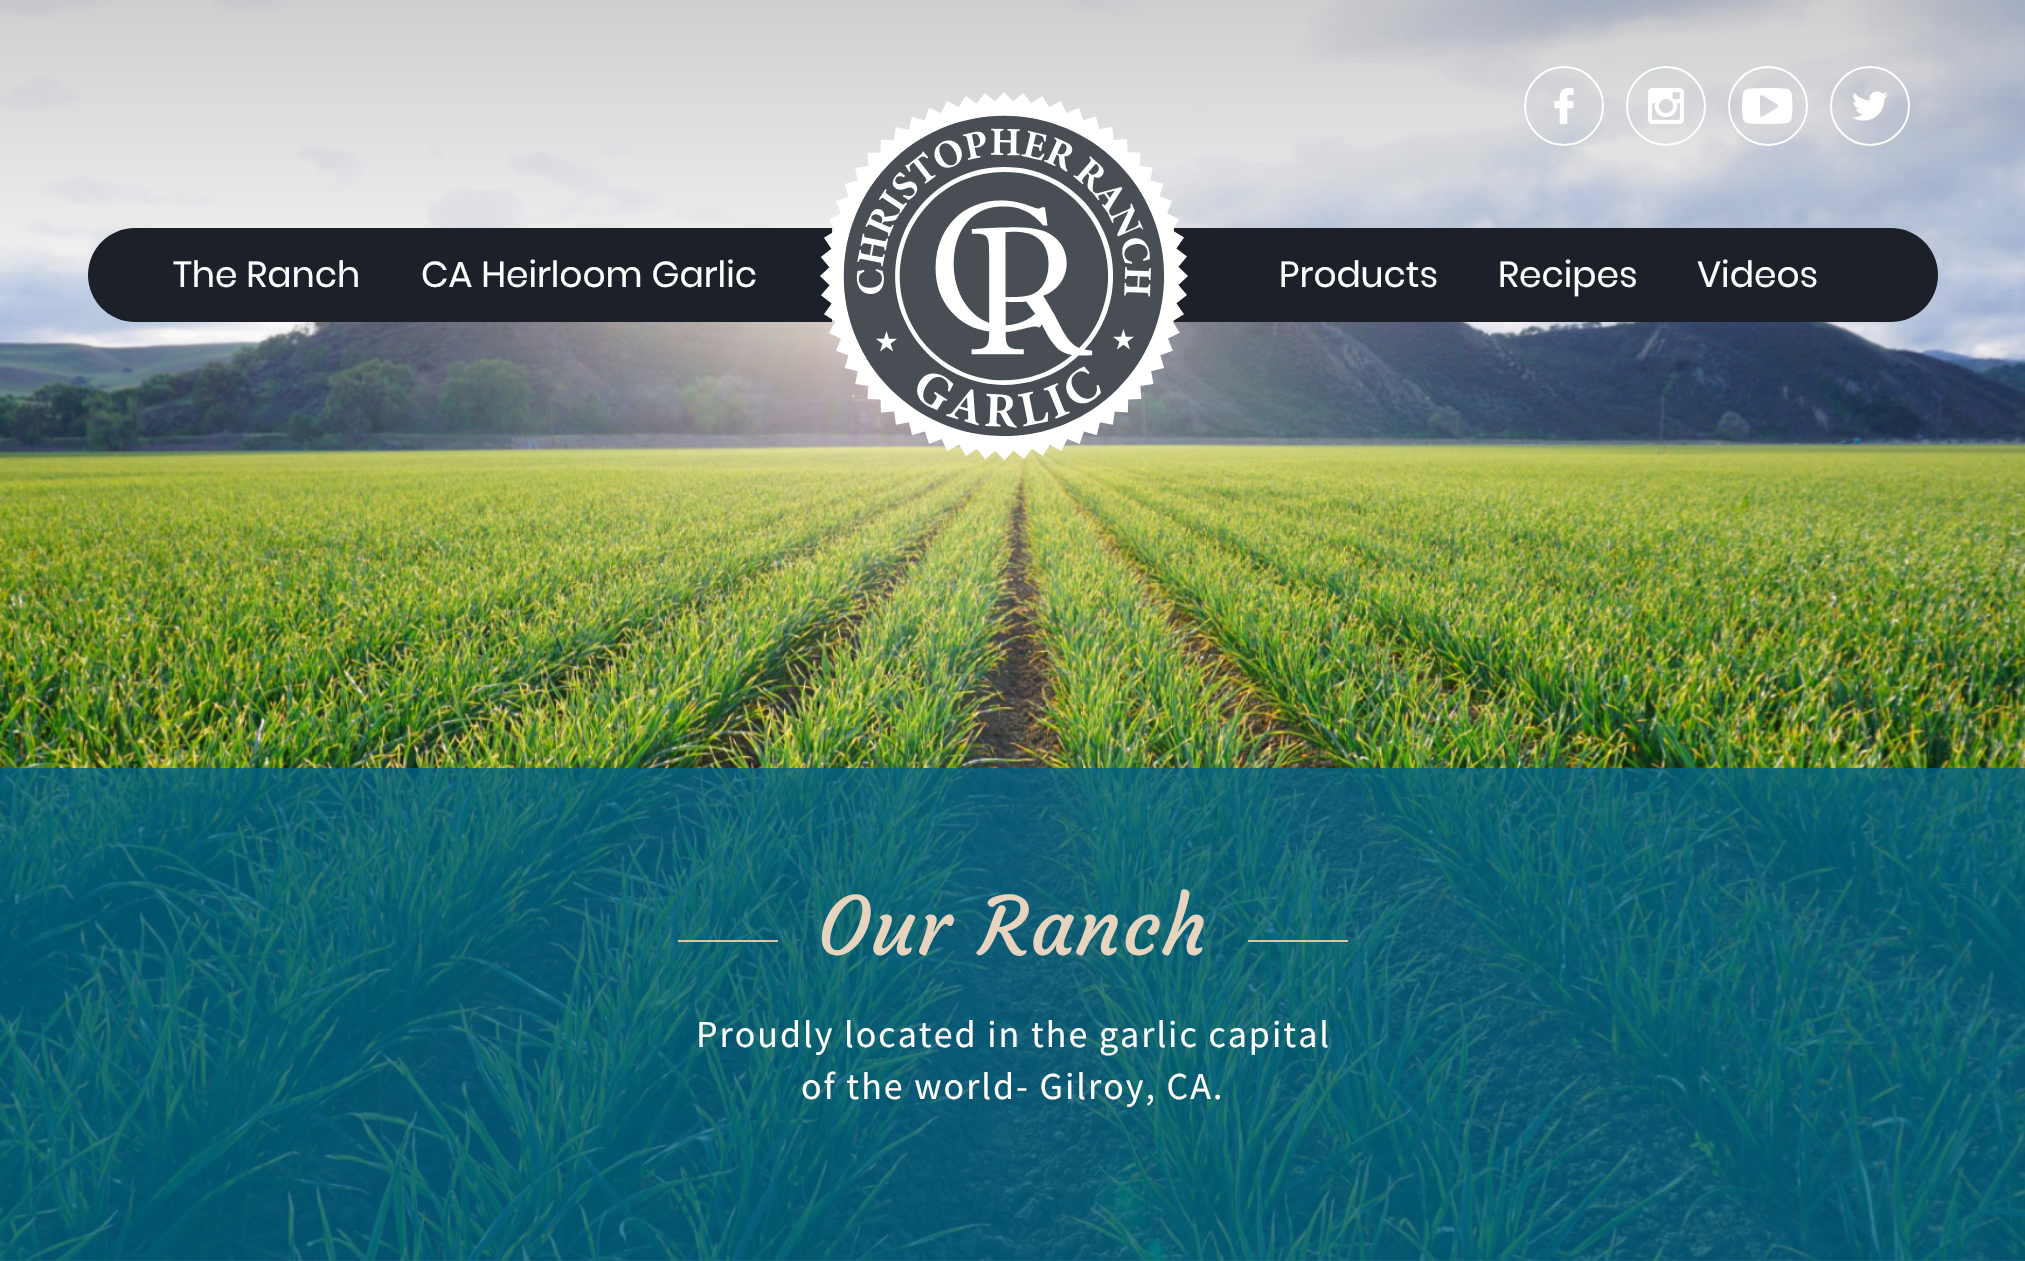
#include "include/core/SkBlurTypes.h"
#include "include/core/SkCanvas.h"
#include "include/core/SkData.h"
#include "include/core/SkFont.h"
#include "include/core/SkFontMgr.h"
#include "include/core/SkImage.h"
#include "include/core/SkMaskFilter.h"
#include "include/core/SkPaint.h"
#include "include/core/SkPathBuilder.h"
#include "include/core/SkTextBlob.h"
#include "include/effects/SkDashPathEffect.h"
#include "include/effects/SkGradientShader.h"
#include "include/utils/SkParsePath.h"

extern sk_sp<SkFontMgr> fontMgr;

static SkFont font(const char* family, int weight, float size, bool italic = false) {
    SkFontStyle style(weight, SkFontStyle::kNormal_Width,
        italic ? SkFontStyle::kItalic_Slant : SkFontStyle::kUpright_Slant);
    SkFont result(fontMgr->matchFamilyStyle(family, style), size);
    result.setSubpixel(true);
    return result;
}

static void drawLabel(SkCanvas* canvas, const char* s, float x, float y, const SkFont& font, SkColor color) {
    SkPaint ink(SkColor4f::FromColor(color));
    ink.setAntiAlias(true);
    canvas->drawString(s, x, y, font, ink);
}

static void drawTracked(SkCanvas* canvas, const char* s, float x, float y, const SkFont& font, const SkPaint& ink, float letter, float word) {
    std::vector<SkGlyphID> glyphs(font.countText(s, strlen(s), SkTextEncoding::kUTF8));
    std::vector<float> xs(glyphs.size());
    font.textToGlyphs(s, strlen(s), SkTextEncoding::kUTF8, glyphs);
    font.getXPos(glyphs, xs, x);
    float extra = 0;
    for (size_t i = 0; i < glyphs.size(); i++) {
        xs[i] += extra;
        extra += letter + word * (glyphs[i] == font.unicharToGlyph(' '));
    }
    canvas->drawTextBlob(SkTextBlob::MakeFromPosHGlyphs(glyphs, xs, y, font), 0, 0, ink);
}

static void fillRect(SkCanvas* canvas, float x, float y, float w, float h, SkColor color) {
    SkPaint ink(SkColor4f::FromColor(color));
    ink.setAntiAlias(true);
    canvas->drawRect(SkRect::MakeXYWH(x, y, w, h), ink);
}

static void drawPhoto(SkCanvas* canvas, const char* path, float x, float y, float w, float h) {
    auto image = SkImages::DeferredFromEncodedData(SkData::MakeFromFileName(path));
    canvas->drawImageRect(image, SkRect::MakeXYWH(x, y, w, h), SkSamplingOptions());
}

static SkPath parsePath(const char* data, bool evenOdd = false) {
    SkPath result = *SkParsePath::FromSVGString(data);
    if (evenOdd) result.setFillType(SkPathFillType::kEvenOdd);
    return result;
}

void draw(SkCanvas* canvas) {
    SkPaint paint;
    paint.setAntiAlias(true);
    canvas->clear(0xFFFFFFFF);
    drawPhoto(canvas, "assets/img6.png", 0, 0, 2025, 1261);
    paint.setStroke(true);
    paint.setStrokeWidth(2);
    paint.setColor(0xFFFFFFFF);
    canvas->drawCircle(1564, 106, 39, paint);
    drawPhoto(canvas, "assets/img1.png", 1554, 88, 20, 36);
    canvas->drawCircle(1666, 106, 39, paint);
    drawPhoto(canvas, "assets/img2.png", 1648, 88, 36, 36);
    canvas->drawCircle(1768, 106, 39, paint);
    drawPhoto(canvas, "assets/img3.png", 1742, 88, 51, 36);
    canvas->drawCircle(1870, 106, 39, paint);
    drawPhoto(canvas, "assets/img4.png", 1852, 91, 36, 30);
    paint.setStroke(false);
    paint.setColor(0xFF1C2029);
    canvas->drawPath(parsePath("M135 228H832V322H135C109 322 88 301 88 275C88 249 109 228 135 228Z"), paint);
    SkFont font1 = font("Poppins", 400, 36);
    drawLabel(canvas, "The Ranch", 173, 287, font1, 0xFFFFFFFF);
    drawLabel(canvas, "CA Heirloom Garlic", 421, 287, font1, 0xFFFFFFFF);
    canvas->drawPath(parsePath("M1174 228H1891C1917 228 1938 249 1938 275C1938 301 1917 322 1891 322H1174Z"), paint);
    drawPhoto(canvas, "assets/img5.png", 820, 92, 368, 368);
    drawLabel(canvas, "Products", 1279, 287, font1, 0xFFFFFFFF);
    drawLabel(canvas, "Recipes", 1498, 287, font1, 0xFFFFFFFF);
    drawLabel(canvas, "Videos", 1697, 287, font1, 0xFFFFFFFF);
    fillRect(canvas, 0, 768, 2025, 493, 0xCC006184);
    fillRect(canvas, 678, 940, 100, 2, 0xFFD9C6A6);
    SkFont font2 = font("Courgette", 400, 80);
    paint.setColor(0xFFE6D4BF);
    drawTracked(canvas, "Our Ranch", 817, 955, font2, paint, 2, 0);
    fillRect(canvas, 1248, 940, 100, 2, 0xFFD9C6A6);
    SkFont font3 = font("Source Sans Pro", 400, 38);
    paint.setColor(0xFFFFFFFF);
    drawTracked(canvas, "Proudly located in the garlic capital", 696, 1047, font3, paint, 2, 0);
    drawTracked(canvas, "of the world- Gilroy, CA.", 801, 1099, font3, paint, 2, 0);
}
